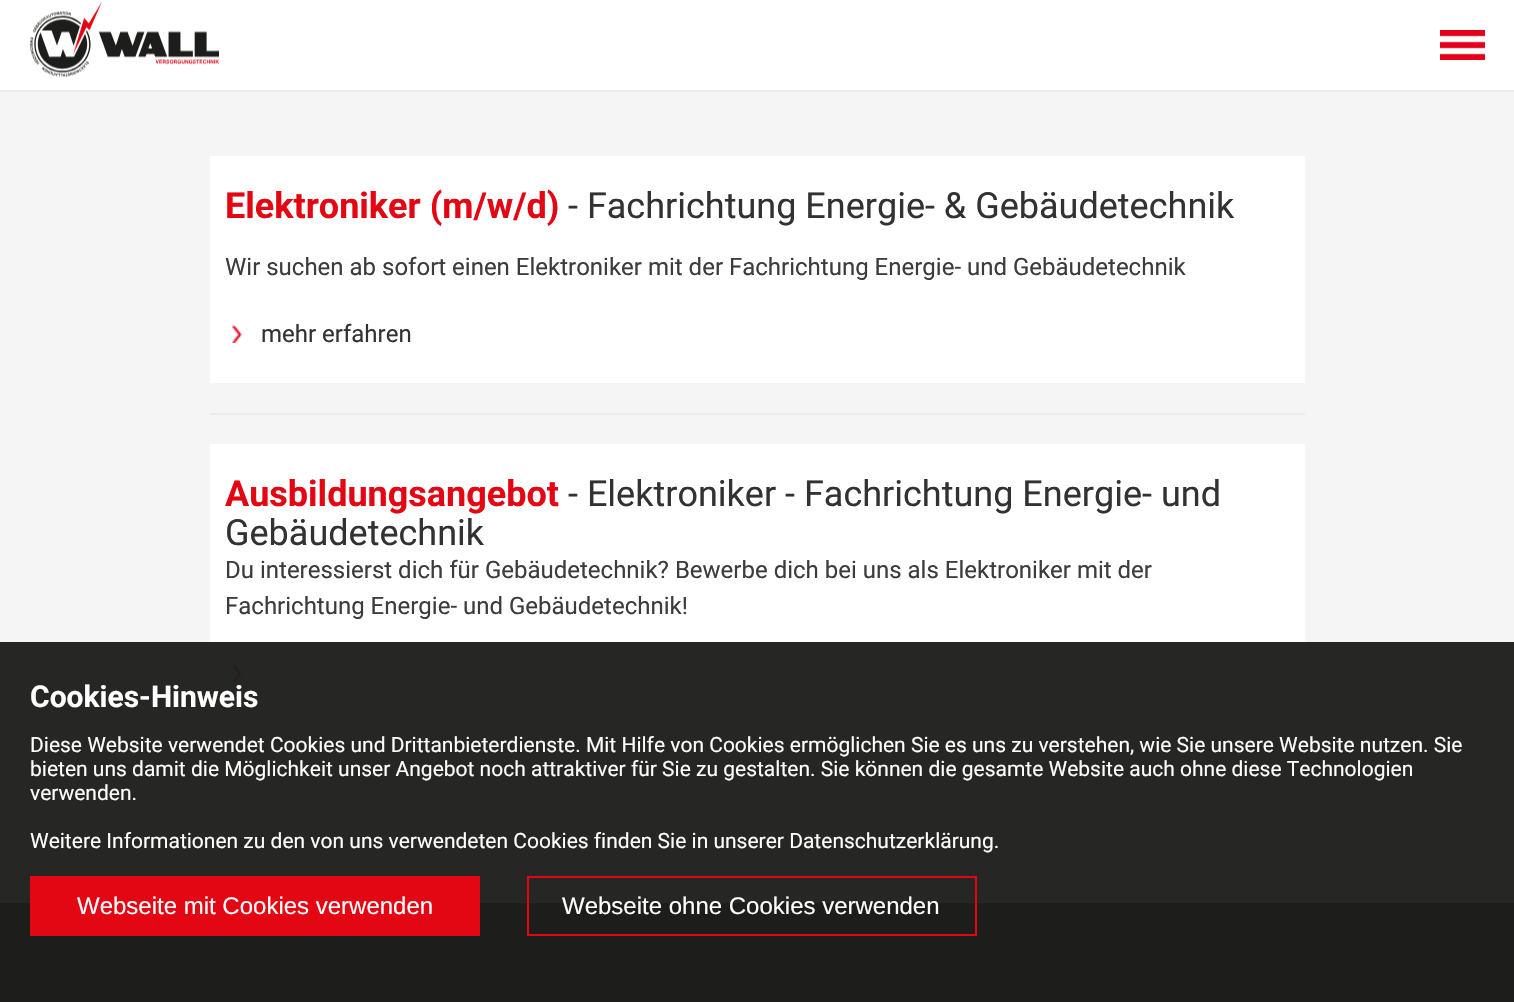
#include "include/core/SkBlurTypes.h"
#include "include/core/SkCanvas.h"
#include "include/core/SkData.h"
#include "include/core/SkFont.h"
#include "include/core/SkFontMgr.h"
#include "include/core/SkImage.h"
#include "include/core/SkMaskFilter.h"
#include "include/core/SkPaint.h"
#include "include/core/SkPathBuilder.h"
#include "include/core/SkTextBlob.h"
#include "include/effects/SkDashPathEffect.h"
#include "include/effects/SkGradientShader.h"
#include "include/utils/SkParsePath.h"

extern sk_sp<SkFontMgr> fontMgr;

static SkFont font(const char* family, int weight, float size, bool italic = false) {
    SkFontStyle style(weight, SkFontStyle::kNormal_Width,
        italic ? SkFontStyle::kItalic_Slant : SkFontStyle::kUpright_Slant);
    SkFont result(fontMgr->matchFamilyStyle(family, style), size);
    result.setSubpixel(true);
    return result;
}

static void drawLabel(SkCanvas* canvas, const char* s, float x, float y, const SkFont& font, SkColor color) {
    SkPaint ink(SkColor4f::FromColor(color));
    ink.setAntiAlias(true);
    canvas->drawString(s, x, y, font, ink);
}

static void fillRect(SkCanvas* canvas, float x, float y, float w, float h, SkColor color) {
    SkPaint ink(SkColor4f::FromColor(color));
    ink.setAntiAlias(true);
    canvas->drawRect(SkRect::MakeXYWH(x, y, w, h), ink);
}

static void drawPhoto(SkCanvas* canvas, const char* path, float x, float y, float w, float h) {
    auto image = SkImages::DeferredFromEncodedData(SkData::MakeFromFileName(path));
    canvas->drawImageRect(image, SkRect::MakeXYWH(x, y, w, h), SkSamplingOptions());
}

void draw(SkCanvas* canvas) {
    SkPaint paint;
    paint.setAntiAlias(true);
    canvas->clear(0xFFF5F5F5);
    fillRect(canvas, 0, 0, 1514, 90, 0xFFFFFFFF);
    drawPhoto(canvas, "assets/img1.png", 30, 1, 189, 76);
    drawPhoto(canvas, "assets/img2.png", 1440, 30, 45, 30);
    fillRect(canvas, 0, 90, 1514, 2, 0xFFEBEBEB);
    fillRect(canvas, 0, 642, 1514, 261, 0xFF262624);
    fillRect(canvas, 210, 156, 1095, 227, 0xFFFFFFFF);
    SkFont font1 = font("Roboto", 700, 36);
    drawLabel(canvas, "Elektroniker (m/w/d)", 225, 218, font1, 0xFFE30613);
    SkFont font2 = font("Roboto", 400, 36);
    drawLabel(canvas, "- Fachrichtung Energie- & Gebäudetechnik", 568, 218, font2, 0xFF323232);
    SkFont font3 = font("Roboto", 400, 24);
    drawLabel(canvas, "Wir suchen ab sofort einen Elektroniker mit der Fachrichtung Energie- und Gebäudetechnik", 225, 275, font3, 0xFF3C3C3C);
    drawPhoto(canvas, "assets/img3.png", 232, 325, 10, 18);
    drawLabel(canvas, "mehr erfahren", 261, 342, font3, 0xFF323232);
    fillRect(canvas, 210, 413, 1095, 2, 0xFFEBEBEB);
    fillRect(canvas, 210, 444, 1095, 198, 0xFFFFFFFF);
    drawLabel(canvas, "Ausbildungsangebot", 225, 506, font1, 0xFFE30613);
    drawLabel(canvas, "- Elektroniker - Fachrichtung Energie- und", 568, 506, font2, 0xFF323232);
    drawLabel(canvas, "Gebäudetechnik", 225, 545, font2, 0xFF323232);
    drawLabel(canvas, "Du interessierst dich für Gebäudetechnik? Bewerbe dich bei uns als Elektroniker mit der", 225, 578, font3, 0xFF3C3C3C);
    drawLabel(canvas, "Fachrichtung Energie- und Gebäudetechnik!", 225, 614, font3, 0xFF3C3C3C);
    drawPhoto(canvas, "assets/img4.png", 232, 664, 10, 18);
    SkFont font4 = font("Roboto", 700, 30);
    drawLabel(canvas, "Cookies-Hinweis", 30, 707, font4, 0xFFFFFFFF);
    SkFont font5 = font("Roboto", 400, 21);
    drawLabel(canvas, "Diese Website verwendet Cookies und Drittanbieterdienste. Mit Hilfe von Cookies ermöglichen Sie es uns zu verstehen, wie Sie unsere Website nutzen. Sie", 30, 752, font5, 0xFFFFFFFF);
    drawLabel(canvas, "bieten uns damit die Möglichkeit unser Angebot noch attraktiver für Sie zu gestalten. Sie können die gesamte Website auch ohne diese Technologien", 30, 776, font5, 0xFFFFFFFF);
    drawLabel(canvas, "verwenden.", 30, 800, font5, 0xFFFFFFFF);
    drawLabel(canvas, "Weitere Informationen zu den von uns verwendeten Cookies finden Sie in unserer Datenschutzerklärung.", 30, 848, font5, 0xFFFFFFFF);
    fillRect(canvas, 0, 903, 1514, 99, 0xFF1D1D1B);
    fillRect(canvas, 30, 876, 450, 60, 0xFFE30613);
    SkFont font6 = font("Liberation Sans", 400, 24);
    drawLabel(canvas, "Webseite mit Cookies verwenden", 77, 914, font6, 0xFFFFFFFF);
    paint.setStroke(true);
    paint.setStrokeWidth(2);
    paint.setColor(0xFFE30613);
    canvas->drawRect(SkRect::MakeXYWH(528, 877, 448, 58), paint);
    drawLabel(canvas, "Webseite ohne Cookies verwenden", 562, 914, font6, 0xFFFFFFFF);
}
